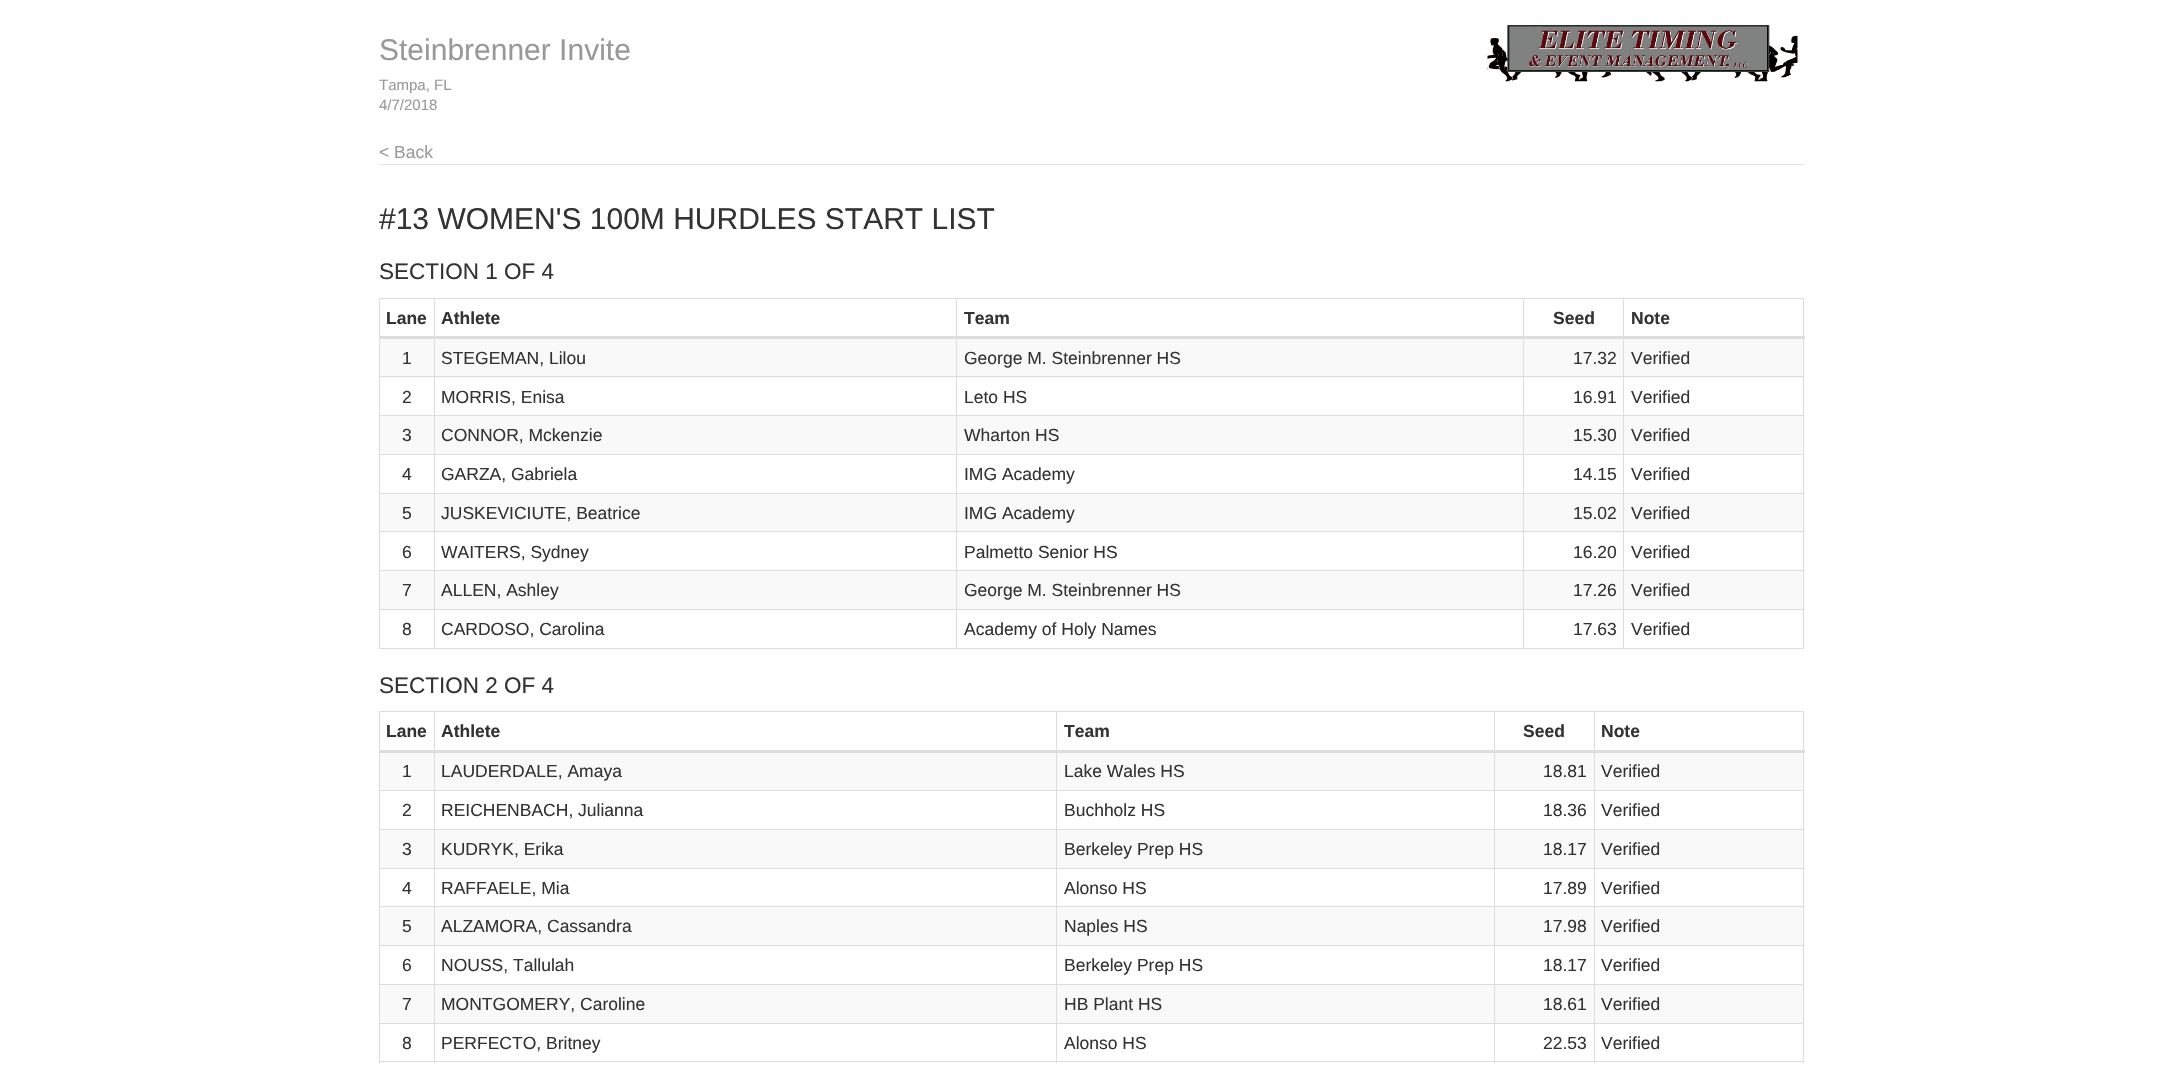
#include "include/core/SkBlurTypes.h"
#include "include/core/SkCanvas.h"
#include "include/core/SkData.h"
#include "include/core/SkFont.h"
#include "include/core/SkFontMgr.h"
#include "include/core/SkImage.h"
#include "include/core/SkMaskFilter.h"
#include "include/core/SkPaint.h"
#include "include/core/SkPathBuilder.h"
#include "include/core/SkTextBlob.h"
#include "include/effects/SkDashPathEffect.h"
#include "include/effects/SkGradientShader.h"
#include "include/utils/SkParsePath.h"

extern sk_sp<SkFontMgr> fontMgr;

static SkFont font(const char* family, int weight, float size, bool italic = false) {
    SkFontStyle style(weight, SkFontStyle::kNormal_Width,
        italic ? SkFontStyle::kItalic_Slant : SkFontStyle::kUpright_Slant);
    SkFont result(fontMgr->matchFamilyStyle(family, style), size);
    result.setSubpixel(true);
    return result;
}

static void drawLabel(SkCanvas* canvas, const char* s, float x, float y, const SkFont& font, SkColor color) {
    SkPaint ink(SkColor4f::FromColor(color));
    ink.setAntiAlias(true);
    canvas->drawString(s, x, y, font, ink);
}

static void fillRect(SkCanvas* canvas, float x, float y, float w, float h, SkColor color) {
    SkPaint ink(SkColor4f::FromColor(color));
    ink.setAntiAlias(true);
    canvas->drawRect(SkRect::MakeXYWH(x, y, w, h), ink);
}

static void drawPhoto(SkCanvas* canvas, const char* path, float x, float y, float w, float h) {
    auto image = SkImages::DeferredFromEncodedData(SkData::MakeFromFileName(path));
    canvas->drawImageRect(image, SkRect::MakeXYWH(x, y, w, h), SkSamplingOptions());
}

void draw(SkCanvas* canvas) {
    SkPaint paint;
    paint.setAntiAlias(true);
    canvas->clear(0xFFFFFFFF);
    fillRect(canvas, 379, 164, 1425, 1, 0xFFE5E5E5);
    SkFont font1 = font("Liberation Sans", 400, 30);
    drawLabel(canvas, "Steinbrenner Invite", 379, 60, font1, 0xFF999999);
    SkFont font2 = font("Liberation Sans", 400, 15);
    drawLabel(canvas, "Tampa, FL", 379, 90, font2, 0xFF999999);
    drawLabel(canvas, "4/7/2018", 379, 110, font2, 0xFF999999);
    drawPhoto(canvas, "assets/img1.png", 1487, 25, 311, 57);
    SkFont font3 = font("Liberation Sans", 400, 17.5f);
    drawLabel(canvas, "< Back", 379, 158, font3, 0xFF999999);
    drawLabel(canvas, "#13 WOMEN'S 100M HURDLES START LIST", 379, 229, font1, 0xFF333333);
    SkFont font4 = font("Liberation Sans", 400, 22.5f);
    drawLabel(canvas, "SECTION 1 OF 4", 379, 279, font4, 0xFF333333);
    fillRect(canvas, 379, 298, 1425, 1, 0xFFDDDDDD);
    fillRect(canvas, 1803, 298, 1, 351, 0xFFDDDDDD);
    fillRect(canvas, 379, 648, 1425, 1, 0xFFDDDDDD);
    fillRect(canvas, 379, 298, 1, 351, 0xFFDDDDDD);
    SkFont font5 = font("Liberation Sans", 700, 17.5f);
    drawLabel(canvas, "Lane", 386, 324, font5, 0xFF333333);
    drawLabel(canvas, "Athlete", 441, 324, font5, 0xFF333333);
    drawLabel(canvas, "Team", 964, 324, font5, 0xFF333333);
    drawLabel(canvas, "Seed", 1553, 324, font5, 0xFF333333);
    fillRect(canvas, 380, 339, 54, 39, 0xFFF9F9F9);
    fillRect(canvas, 435, 339, 1088, 39, 0xFFF9F9F9);
    fillRect(canvas, 1524, 339, 99, 39, 0xFFF9F9F9);
    fillRect(canvas, 1624, 339, 179, 39, 0xFFF9F9F9);
    fillRect(canvas, 1623, 376, 181, 1, 0xFFDDDDDD);
    fillRect(canvas, 1623, 415, 181, 1, 0xFFDDDDDD);
    fillRect(canvas, 1623, 454, 181, 1, 0xFFDDDDDD);
    fillRect(canvas, 1623, 493, 181, 1, 0xFFDDDDDD);
    fillRect(canvas, 1524, 494, 99, 39, 0xFFF9F9F9);
    fillRect(canvas, 1624, 494, 179, 39, 0xFFF9F9F9);
    fillRect(canvas, 1623, 531, 181, 1, 0xFFDDDDDD);
    fillRect(canvas, 1623, 570, 181, 1, 0xFFDDDDDD);
    fillRect(canvas, 1623, 609, 181, 1, 0xFFDDDDDD);
    fillRect(canvas, 1623, 609, 1, 40, 0xFFDDDDDD);
    fillRect(canvas, 1523, 609, 101, 1, 0xFFDDDDDD);
    fillRect(canvas, 1623, 570, 1, 40, 0xFFDDDDDD);
    fillRect(canvas, 1523, 570, 101, 1, 0xFFDDDDDD);
    fillRect(canvas, 1623, 531, 1, 40, 0xFFDDDDDD);
    fillRect(canvas, 1523, 531, 101, 1, 0xFFDDDDDD);
    fillRect(canvas, 1623, 493, 1, 40, 0xFFDDDDDD);
    fillRect(canvas, 1523, 493, 101, 1, 0xFFDDDDDD);
    fillRect(canvas, 1623, 454, 1, 40, 0xFFDDDDDD);
    fillRect(canvas, 1523, 454, 101, 1, 0xFFDDDDDD);
    fillRect(canvas, 1623, 415, 1, 40, 0xFFDDDDDD);
    fillRect(canvas, 1523, 415, 101, 1, 0xFFDDDDDD);
    fillRect(canvas, 1623, 376, 1, 40, 0xFFDDDDDD);
    fillRect(canvas, 1523, 376, 101, 1, 0xFFDDDDDD);
    fillRect(canvas, 435, 494, 1088, 39, 0xFFF9F9F9);
    fillRect(canvas, 1523, 609, 1, 40, 0xFFDDDDDD);
    fillRect(canvas, 956, 609, 568, 1, 0xFFDDDDDD);
    fillRect(canvas, 1523, 570, 1, 40, 0xFFDDDDDD);
    fillRect(canvas, 956, 570, 568, 1, 0xFFDDDDDD);
    fillRect(canvas, 1523, 531, 1, 40, 0xFFDDDDDD);
    fillRect(canvas, 956, 531, 568, 1, 0xFFDDDDDD);
    fillRect(canvas, 1523, 493, 1, 40, 0xFFDDDDDD);
    fillRect(canvas, 956, 493, 568, 1, 0xFFDDDDDD);
    fillRect(canvas, 1523, 454, 1, 40, 0xFFDDDDDD);
    fillRect(canvas, 956, 454, 568, 1, 0xFFDDDDDD);
    fillRect(canvas, 1523, 415, 1, 40, 0xFFDDDDDD);
    fillRect(canvas, 956, 415, 568, 1, 0xFFDDDDDD);
    fillRect(canvas, 1523, 376, 1, 40, 0xFFDDDDDD);
    fillRect(canvas, 956, 376, 568, 1, 0xFFDDDDDD);
    fillRect(canvas, 435, 416, 1088, 38, 0xFFF9F9F9);
    fillRect(canvas, 435, 571, 1088, 38, 0xFFF9F9F9);
    fillRect(canvas, 956, 609, 1, 40, 0xFFDDDDDD);
    fillRect(canvas, 434, 609, 524, 1, 0xFFDDDDDD);
    fillRect(canvas, 956, 570, 1, 40, 0xFFDDDDDD);
    fillRect(canvas, 434, 570, 524, 1, 0xFFDDDDDD);
    fillRect(canvas, 956, 531, 1, 40, 0xFFDDDDDD);
    fillRect(canvas, 434, 531, 524, 1, 0xFFDDDDDD);
    fillRect(canvas, 956, 493, 1, 40, 0xFFDDDDDD);
    fillRect(canvas, 434, 493, 524, 1, 0xFFDDDDDD);
    fillRect(canvas, 956, 454, 1, 40, 0xFFDDDDDD);
    fillRect(canvas, 434, 454, 524, 1, 0xFFDDDDDD);
    fillRect(canvas, 956, 415, 1, 40, 0xFFDDDDDD);
    fillRect(canvas, 434, 415, 524, 1, 0xFFDDDDDD);
    fillRect(canvas, 956, 376, 1, 40, 0xFFDDDDDD);
    fillRect(canvas, 434, 376, 524, 1, 0xFFDDDDDD);
    fillRect(canvas, 380, 494, 54, 39, 0xFFF9F9F9);
    fillRect(canvas, 434, 609, 1, 40, 0xFFDDDDDD);
    fillRect(canvas, 379, 609, 56, 1, 0xFFDDDDDD);
    fillRect(canvas, 434, 570, 1, 40, 0xFFDDDDDD);
    fillRect(canvas, 379, 570, 56, 1, 0xFFDDDDDD);
    fillRect(canvas, 434, 531, 1, 40, 0xFFDDDDDD);
    fillRect(canvas, 379, 531, 56, 1, 0xFFDDDDDD);
    fillRect(canvas, 434, 493, 1, 40, 0xFFDDDDDD);
    fillRect(canvas, 379, 493, 56, 1, 0xFFDDDDDD);
    fillRect(canvas, 434, 454, 1, 40, 0xFFDDDDDD);
    fillRect(canvas, 379, 454, 56, 1, 0xFFDDDDDD);
    fillRect(canvas, 434, 415, 1, 40, 0xFFDDDDDD);
    fillRect(canvas, 379, 415, 56, 1, 0xFFDDDDDD);
    fillRect(canvas, 434, 376, 1, 40, 0xFFDDDDDD);
    fillRect(canvas, 379, 376, 56, 1, 0xFFDDDDDD);
    fillRect(canvas, 434, 298, 1, 80, 0xFFDDDDDD);
    fillRect(canvas, 956, 298, 1, 80, 0xFFDDDDDD);
    fillRect(canvas, 1523, 298, 1, 80, 0xFFDDDDDD);
    fillRect(canvas, 1623, 298, 1, 80, 0xFFDDDDDD);
    fillRect(canvas, 379, 336, 1426, 3, 0xFFDDDDDD);
    drawLabel(canvas, "Note", 1631, 324, font5, 0xFF333333);
    drawLabel(canvas, "1", 402, 364, font3, 0xFF333333);
    drawLabel(canvas, "STEGEMAN, Lilou", 441, 364, font3, 0xFF333333);
    drawLabel(canvas, "George M. Steinbrenner HS", 964, 364, font3, 0xFF333333);
    drawLabel(canvas, "17.32", 1573, 364, font3, 0xFF333333);
    drawLabel(canvas, "Verified", 1631, 364, font3, 0xFF333333);
    drawLabel(canvas, "2", 402, 403, font3, 0xFF333333);
    drawLabel(canvas, "MORRIS, Enisa", 441, 403, font3, 0xFF333333);
    drawLabel(canvas, "Leto HS", 964, 403, font3, 0xFF333333);
    drawLabel(canvas, "16.91", 1573, 403, font3, 0xFF333333);
    drawLabel(canvas, "Verified", 1631, 403, font3, 0xFF333333);
    fillRect(canvas, 380, 416, 54, 38, 0xFFF9F9F9);
    drawLabel(canvas, "3", 402, 441, font3, 0xFF333333);
    drawLabel(canvas, "CONNOR, Mckenzie", 441, 441, font3, 0xFF333333);
    drawLabel(canvas, "Wharton HS", 964, 441, font3, 0xFF333333);
    fillRect(canvas, 1524, 416, 99, 38, 0xFFF9F9F9);
    drawLabel(canvas, "15.30", 1573, 441, font3, 0xFF333333);
    fillRect(canvas, 1624, 416, 179, 38, 0xFFF9F9F9);
    drawLabel(canvas, "Verified", 1631, 441, font3, 0xFF333333);
    drawLabel(canvas, "4", 402, 480, font3, 0xFF333333);
    drawLabel(canvas, "GARZA, Gabriela", 441, 480, font3, 0xFF333333);
    drawLabel(canvas, "IMG Academy", 964, 480, font3, 0xFF333333);
    drawLabel(canvas, "14.15", 1573, 480, font3, 0xFF333333);
    drawLabel(canvas, "Verified", 1631, 480, font3, 0xFF333333);
    drawLabel(canvas, "5", 402, 519, font3, 0xFF333333);
    drawLabel(canvas, "JUSKEVICIUTE, Beatrice", 441, 519, font3, 0xFF333333);
    drawLabel(canvas, "IMG Academy", 964, 519, font3, 0xFF333333);
    drawLabel(canvas, "15.02", 1573, 519, font3, 0xFF333333);
    drawLabel(canvas, "Verified", 1631, 519, font3, 0xFF333333);
    drawLabel(canvas, "6", 402, 558, font3, 0xFF333333);
    drawLabel(canvas, "WAITERS, Sydney", 441, 558, font3, 0xFF333333);
    drawLabel(canvas, "Palmetto Senior HS", 964, 558, font3, 0xFF333333);
    drawLabel(canvas, "16.20", 1573, 558, font3, 0xFF333333);
    drawLabel(canvas, "Verified", 1631, 558, font3, 0xFF333333);
    fillRect(canvas, 380, 571, 54, 38, 0xFFF9F9F9);
    drawLabel(canvas, "7", 402, 596, font3, 0xFF333333);
    drawLabel(canvas, "ALLEN, Ashley", 441, 596, font3, 0xFF333333);
    drawLabel(canvas, "George M. Steinbrenner HS", 964, 596, font3, 0xFF333333);
    fillRect(canvas, 1524, 571, 99, 38, 0xFFF9F9F9);
    drawLabel(canvas, "17.26", 1573, 596, font3, 0xFF333333);
    fillRect(canvas, 1624, 571, 179, 38, 0xFFF9F9F9);
    drawLabel(canvas, "Verified", 1631, 596, font3, 0xFF333333);
    drawLabel(canvas, "8", 402, 635, font3, 0xFF333333);
    drawLabel(canvas, "CARDOSO, Carolina", 441, 635, font3, 0xFF333333);
    drawLabel(canvas, "Academy of Holy Names", 964, 635, font3, 0xFF333333);
    drawLabel(canvas, "17.63", 1573, 635, font3, 0xFF333333);
    drawLabel(canvas, "Verified", 1631, 635, font3, 0xFF333333);
    drawLabel(canvas, "SECTION 2 OF 4", 379, 693, font4, 0xFF333333);
    fillRect(canvas, 379, 711, 1425, 1, 0xFFDDDDDD);
    fillRect(canvas, 1803, 711, 1, 352, 0xFFDDDDDD);
    fillRect(canvas, 379, 1061, 1425, 1, 0xFFDDDDDD);
    fillRect(canvas, 379, 711, 1, 352, 0xFFDDDDDD);
    drawLabel(canvas, "Lane", 386, 737, font5, 0xFF333333);
    drawLabel(canvas, "Athlete", 441, 737, font5, 0xFF333333);
    drawLabel(canvas, "Team", 1064, 737, font5, 0xFF333333);
    drawLabel(canvas, "Seed", 1523, 737, font5, 0xFF333333);
    fillRect(canvas, 1594, 790, 210, 1, 0xFFDDDDDD);
    fillRect(canvas, 1594, 829, 210, 1, 0xFFDDDDDD);
    fillRect(canvas, 1594, 868, 210, 1, 0xFFDDDDDD);
    fillRect(canvas, 1594, 906, 210, 1, 0xFFDDDDDD);
    fillRect(canvas, 1594, 945, 210, 1, 0xFFDDDDDD);
    fillRect(canvas, 1594, 984, 210, 1, 0xFFDDDDDD);
    fillRect(canvas, 1594, 1023, 210, 1, 0xFFDDDDDD);
    fillRect(canvas, 1594, 1023, 1, 40, 0xFFDDDDDD);
    fillRect(canvas, 1494, 1023, 101, 1, 0xFFDDDDDD);
    fillRect(canvas, 1594, 984, 1, 40, 0xFFDDDDDD);
    fillRect(canvas, 1494, 984, 101, 1, 0xFFDDDDDD);
    fillRect(canvas, 1594, 945, 1, 40, 0xFFDDDDDD);
    fillRect(canvas, 1494, 945, 101, 1, 0xFFDDDDDD);
    fillRect(canvas, 1594, 906, 1, 40, 0xFFDDDDDD);
    fillRect(canvas, 1494, 906, 101, 1, 0xFFDDDDDD);
    fillRect(canvas, 1594, 868, 1, 40, 0xFFDDDDDD);
    fillRect(canvas, 1494, 868, 101, 1, 0xFFDDDDDD);
    fillRect(canvas, 1594, 829, 1, 40, 0xFFDDDDDD);
    fillRect(canvas, 1494, 829, 101, 1, 0xFFDDDDDD);
    fillRect(canvas, 1594, 790, 1, 40, 0xFFDDDDDD);
    fillRect(canvas, 1494, 790, 101, 1, 0xFFDDDDDD);
    fillRect(canvas, 1494, 1023, 1, 40, 0xFFDDDDDD);
    fillRect(canvas, 1056, 1023, 439, 1, 0xFFDDDDDD);
    fillRect(canvas, 1494, 984, 1, 40, 0xFFDDDDDD);
    fillRect(canvas, 1056, 984, 439, 1, 0xFFDDDDDD);
    fillRect(canvas, 1494, 945, 1, 40, 0xFFDDDDDD);
    fillRect(canvas, 1056, 945, 439, 1, 0xFFDDDDDD);
    fillRect(canvas, 1494, 906, 1, 40, 0xFFDDDDDD);
    fillRect(canvas, 1056, 906, 439, 1, 0xFFDDDDDD);
    fillRect(canvas, 1494, 868, 1, 40, 0xFFDDDDDD);
    fillRect(canvas, 1056, 868, 439, 1, 0xFFDDDDDD);
    fillRect(canvas, 1494, 829, 1, 40, 0xFFDDDDDD);
    fillRect(canvas, 1056, 829, 439, 1, 0xFFDDDDDD);
    fillRect(canvas, 1494, 790, 1, 40, 0xFFDDDDDD);
    fillRect(canvas, 1056, 790, 439, 1, 0xFFDDDDDD);
    fillRect(canvas, 435, 830, 1059, 38, 0xFFF9F9F9);
    fillRect(canvas, 435, 907, 1059, 38, 0xFFF9F9F9);
    fillRect(canvas, 435, 985, 1059, 38, 0xFFF9F9F9);
    fillRect(canvas, 1056, 1023, 1, 40, 0xFFDDDDDD);
    fillRect(canvas, 434, 1023, 624, 1, 0xFFDDDDDD);
    fillRect(canvas, 1056, 984, 1, 40, 0xFFDDDDDD);
    fillRect(canvas, 434, 984, 624, 1, 0xFFDDDDDD);
    fillRect(canvas, 1056, 945, 1, 40, 0xFFDDDDDD);
    fillRect(canvas, 434, 945, 624, 1, 0xFFDDDDDD);
    fillRect(canvas, 1056, 906, 1, 40, 0xFFDDDDDD);
    fillRect(canvas, 434, 906, 624, 1, 0xFFDDDDDD);
    fillRect(canvas, 1056, 868, 1, 40, 0xFFDDDDDD);
    fillRect(canvas, 434, 868, 624, 1, 0xFFDDDDDD);
    fillRect(canvas, 1056, 829, 1, 40, 0xFFDDDDDD);
    fillRect(canvas, 434, 829, 624, 1, 0xFFDDDDDD);
    fillRect(canvas, 1056, 790, 1, 40, 0xFFDDDDDD);
    fillRect(canvas, 434, 790, 624, 1, 0xFFDDDDDD);
    fillRect(canvas, 434, 1023, 1, 40, 0xFFDDDDDD);
    fillRect(canvas, 379, 1023, 56, 1, 0xFFDDDDDD);
    fillRect(canvas, 434, 984, 1, 40, 0xFFDDDDDD);
    fillRect(canvas, 379, 984, 56, 1, 0xFFDDDDDD);
    fillRect(canvas, 434, 945, 1, 40, 0xFFDDDDDD);
    fillRect(canvas, 379, 945, 56, 1, 0xFFDDDDDD);
    fillRect(canvas, 434, 906, 1, 40, 0xFFDDDDDD);
    fillRect(canvas, 379, 906, 56, 1, 0xFFDDDDDD);
    fillRect(canvas, 434, 868, 1, 40, 0xFFDDDDDD);
    fillRect(canvas, 379, 868, 56, 1, 0xFFDDDDDD);
    fillRect(canvas, 434, 829, 1, 40, 0xFFDDDDDD);
    fillRect(canvas, 379, 829, 56, 1, 0xFFDDDDDD);
    fillRect(canvas, 434, 790, 1, 40, 0xFFDDDDDD);
    fillRect(canvas, 379, 790, 56, 1, 0xFFDDDDDD);
    fillRect(canvas, 434, 711, 1, 80, 0xFFDDDDDD);
    fillRect(canvas, 435, 753, 1059, 37, 0xFFF9F9F9);
    fillRect(canvas, 1056, 711, 1, 80, 0xFFDDDDDD);
    fillRect(canvas, 1494, 711, 1, 80, 0xFFDDDDDD);
    fillRect(canvas, 1594, 711, 1, 80, 0xFFDDDDDD);
    fillRect(canvas, 379, 750, 1426, 3, 0xFFDDDDDD);
    drawLabel(canvas, "Note", 1601, 737, font5, 0xFF333333);
    fillRect(canvas, 380, 753, 54, 37, 0xFFF9F9F9);
    drawLabel(canvas, "1", 402, 777, font3, 0xFF333333);
    drawLabel(canvas, "LAUDERDALE, Amaya", 441, 777, font3, 0xFF333333);
    drawLabel(canvas, "Lake Wales HS", 1064, 777, font3, 0xFF333333);
    fillRect(canvas, 1495, 753, 99, 37, 0xFFF9F9F9);
    drawLabel(canvas, "18.81", 1543, 777, font3, 0xFF333333);
    fillRect(canvas, 1595, 753, 208, 37, 0xFFF9F9F9);
    drawLabel(canvas, "Verified", 1601, 777, font3, 0xFF333333);
    drawLabel(canvas, "2", 402, 816, font3, 0xFF333333);
    drawLabel(canvas, "REICHENBACH, Julianna", 441, 816, font3, 0xFF333333);
    drawLabel(canvas, "Buchholz HS", 1064, 816, font3, 0xFF333333);
    drawLabel(canvas, "18.36", 1543, 816, font3, 0xFF333333);
    drawLabel(canvas, "Verified", 1601, 816, font3, 0xFF333333);
    fillRect(canvas, 380, 830, 54, 38, 0xFFF9F9F9);
    drawLabel(canvas, "3", 402, 855, font3, 0xFF333333);
    drawLabel(canvas, "KUDRYK, Erika", 441, 855, font3, 0xFF333333);
    drawLabel(canvas, "Berkeley Prep HS", 1064, 855, font3, 0xFF333333);
    fillRect(canvas, 1495, 830, 99, 38, 0xFFF9F9F9);
    drawLabel(canvas, "18.17", 1543, 855, font3, 0xFF333333);
    fillRect(canvas, 1595, 830, 208, 38, 0xFFF9F9F9);
    drawLabel(canvas, "Verified", 1601, 855, font3, 0xFF333333);
    drawLabel(canvas, "4", 402, 894, font3, 0xFF333333);
    drawLabel(canvas, "RAFFAELE, Mia", 441, 894, font3, 0xFF333333);
    drawLabel(canvas, "Alonso HS", 1064, 894, font3, 0xFF333333);
    drawLabel(canvas, "17.89", 1543, 894, font3, 0xFF333333);
    drawLabel(canvas, "Verified", 1601, 894, font3, 0xFF333333);
    fillRect(canvas, 380, 907, 54, 38, 0xFFF9F9F9);
    drawLabel(canvas, "5", 402, 932, font3, 0xFF333333);
    drawLabel(canvas, "ALZAMORA, Cassandra", 441, 932, font3, 0xFF333333);
    drawLabel(canvas, "Naples HS", 1064, 932, font3, 0xFF333333);
    fillRect(canvas, 1495, 907, 99, 38, 0xFFF9F9F9);
    drawLabel(canvas, "17.98", 1543, 932, font3, 0xFF333333);
    fillRect(canvas, 1595, 907, 208, 38, 0xFFF9F9F9);
    drawLabel(canvas, "Verified", 1601, 932, font3, 0xFF333333);
    drawLabel(canvas, "6", 402, 971, font3, 0xFF333333);
    drawLabel(canvas, "NOUSS, Tallulah", 441, 971, font3, 0xFF333333);
    drawLabel(canvas, "Berkeley Prep HS", 1064, 971, font3, 0xFF333333);
    drawLabel(canvas, "18.17", 1543, 971, font3, 0xFF333333);
    drawLabel(canvas, "Verified", 1601, 971, font3, 0xFF333333);
    fillRect(canvas, 380, 985, 54, 38, 0xFFF9F9F9);
    drawLabel(canvas, "7", 402, 1010, font3, 0xFF333333);
    drawLabel(canvas, "MONTGOMERY, Caroline", 441, 1010, font3, 0xFF333333);
    drawLabel(canvas, "HB Plant HS", 1064, 1010, font3, 0xFF333333);
    fillRect(canvas, 1495, 985, 99, 38, 0xFFF9F9F9);
    drawLabel(canvas, "18.61", 1543, 1010, font3, 0xFF333333);
    fillRect(canvas, 1595, 985, 208, 38, 0xFFF9F9F9);
    drawLabel(canvas, "Verified", 1601, 1010, font3, 0xFF333333);
    drawLabel(canvas, "8", 402, 1049, font3, 0xFF333333);
    drawLabel(canvas, "PERFECTO, Britney", 441, 1049, font3, 0xFF333333);
    drawLabel(canvas, "Alonso HS", 1064, 1049, font3, 0xFF333333);
    drawLabel(canvas, "22.53", 1543, 1049, font3, 0xFF333333);
    drawLabel(canvas, "Verified", 1601, 1049, font3, 0xFF333333);
}
